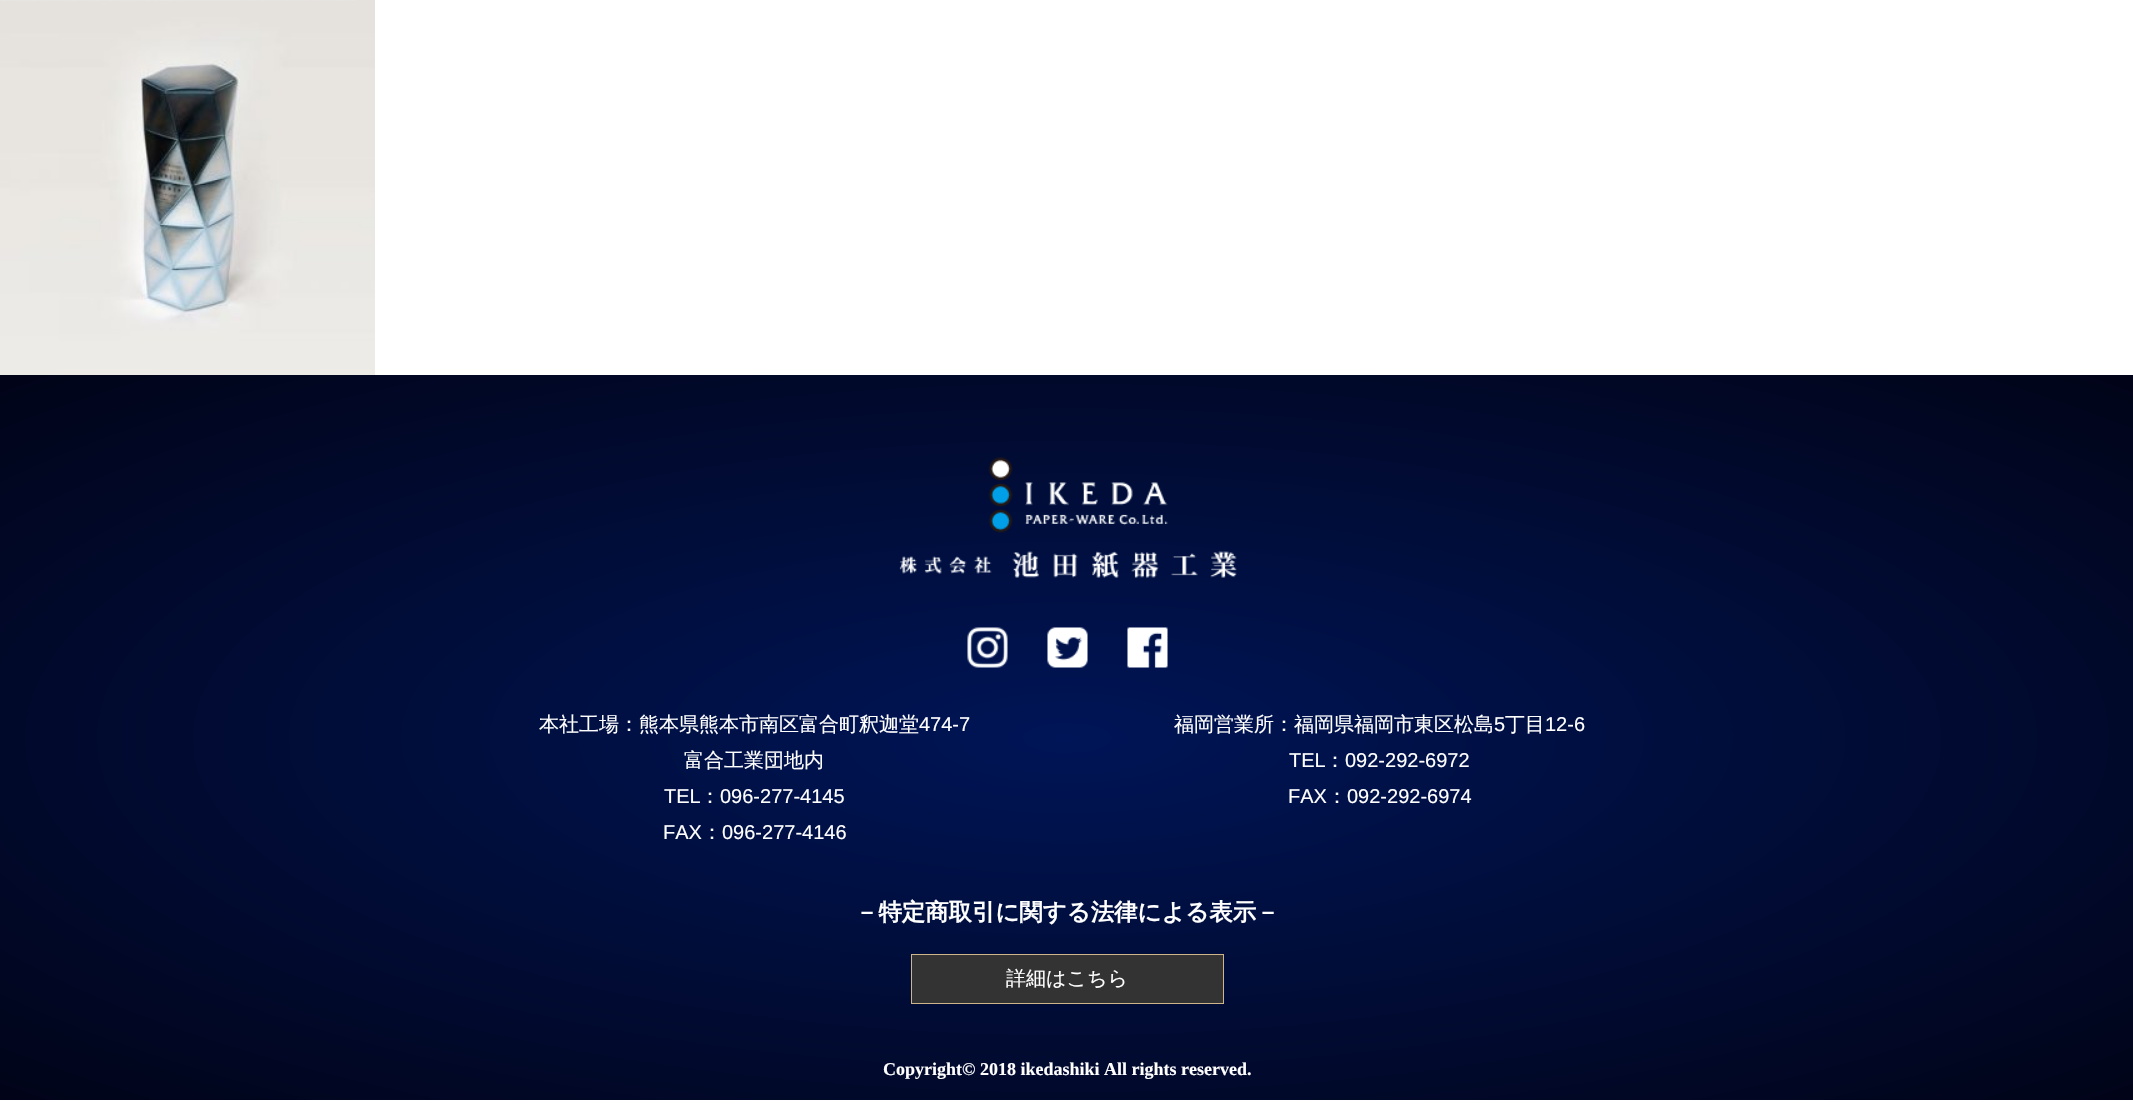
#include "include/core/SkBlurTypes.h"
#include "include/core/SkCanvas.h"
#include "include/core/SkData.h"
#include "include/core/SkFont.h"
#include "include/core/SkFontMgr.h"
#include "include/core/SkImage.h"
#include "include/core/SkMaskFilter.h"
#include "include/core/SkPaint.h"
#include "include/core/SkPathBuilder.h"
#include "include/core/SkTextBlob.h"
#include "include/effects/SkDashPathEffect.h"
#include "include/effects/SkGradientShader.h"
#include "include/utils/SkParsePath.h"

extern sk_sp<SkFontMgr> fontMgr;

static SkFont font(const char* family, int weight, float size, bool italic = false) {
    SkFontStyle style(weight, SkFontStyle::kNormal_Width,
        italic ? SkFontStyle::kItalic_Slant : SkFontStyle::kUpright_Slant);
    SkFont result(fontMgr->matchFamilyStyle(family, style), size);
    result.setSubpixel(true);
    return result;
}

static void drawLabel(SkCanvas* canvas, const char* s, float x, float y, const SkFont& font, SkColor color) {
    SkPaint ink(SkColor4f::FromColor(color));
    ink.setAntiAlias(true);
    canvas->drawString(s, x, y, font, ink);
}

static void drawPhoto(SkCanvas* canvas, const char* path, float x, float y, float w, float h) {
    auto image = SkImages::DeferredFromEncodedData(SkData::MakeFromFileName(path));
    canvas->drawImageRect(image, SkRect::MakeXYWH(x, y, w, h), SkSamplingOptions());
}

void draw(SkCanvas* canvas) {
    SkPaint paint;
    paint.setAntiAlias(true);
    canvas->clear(0xFFFFFFFF);
    drawPhoto(canvas, "assets/img1.png", 0, 0, 375, 375);
    drawPhoto(canvas, "assets/img2.png", 0, 0, 355, 1);
    {
        const SkColor colors[] = {0xFF001557, 0xFF010418};
        const float stops[] = {0, 1};
        SkMatrix m = SkMatrix::Translate(1067, 738).preScale(1509, 513);
        paint.setShader(SkGradientShader::MakeRadial({0, 0}, 1, colors, stops, 2, SkTileMode::kClamp, 0, &m));
        paint.setAlpha(255);
    }
    canvas->drawRect(SkRect::MakeXYWH(0, 375, 2133, 725), paint);
    drawPhoto(canvas, "assets/img3.png", 899, 457, 338, 121);
    drawPhoto(canvas, "assets/img4.png", 967, 627, 41, 41);
    drawPhoto(canvas, "assets/img5.png", 1047, 627, 41, 41);
    drawPhoto(canvas, "assets/img6.png", 1127, 627, 41, 41);
    SkFont font1 = font("WenQuanYi Zen Hei", 500, 20);
    drawLabel(canvas, "本社工場：熊本県熊本市南区富合町釈迦堂", 539, 731, font1, 0xFFFFFFFF);
    SkFont font2 = font("Liberation Sans", 400, 20);
    drawLabel(canvas, "474-7", 919, 731, font2, 0xFFFFFFFF);
    drawLabel(canvas, "富合工業団地内", 684, 767, font1, 0xFFFFFFFF);
    drawLabel(canvas, "TEL", 664, 803, font2, 0xFFFFFFFF);
    drawLabel(canvas, "：", 700, 803, font1, 0xFFFFFFFF);
    drawLabel(canvas, "096-277-4145", 720, 803, font2, 0xFFFFFFFF);
    drawLabel(canvas, "FAX", 663, 839, font2, 0xFFFFFFFF);
    drawLabel(canvas, "：", 702, 839, font1, 0xFFFFFFFF);
    drawLabel(canvas, "096-277-4146", 722, 839, font2, 0xFFFFFFFF);
    drawLabel(canvas, "福岡営業所：福岡県福岡市東区松島", 1174, 731, font1, 0xFFFFFFFF);
    drawLabel(canvas, "5", 1494, 731, font2, 0xFFFFFFFF);
    drawLabel(canvas, "丁目", 1505, 731, font1, 0xFFFFFFFF);
    drawLabel(canvas, "12-6", 1545, 731, font2, 0xFFFFFFFF);
    drawLabel(canvas, "TEL", 1289, 767, font2, 0xFFFFFFFF);
    drawLabel(canvas, "：", 1325, 767, font1, 0xFFFFFFFF);
    drawLabel(canvas, "092-292-6972", 1345, 767, font2, 0xFFFFFFFF);
    drawLabel(canvas, "FAX", 1288, 803, font2, 0xFFFFFFFF);
    drawLabel(canvas, "：", 1327, 803, font1, 0xFFFFFFFF);
    drawLabel(canvas, "092-292-6974", 1347, 803, font2, 0xFFFFFFFF);
    SkFont font3 = font("WenQuanYi Zen Hei", 700, 23.4f);
    drawLabel(canvas, "－特定商取引に関する法律による表示－", 855, 920, font3, 0xFFFFFFFF);
    paint.setShader(nullptr);
    paint.setColor(0xFF333333);
    canvas->drawRect(SkRect::MakeXYWH(911.5f, 954.5f, 312, 49), paint);
    paint.setStroke(true);
    paint.setStrokeWidth(1);
    paint.setColor(0xFFCFB68A);
    canvas->drawRect(SkRect::MakeXYWH(911.5f, 954.5f, 312, 49), paint);
    drawLabel(canvas, "詳細はこちら", 1006, 985, font1, 0xFFFFFFFF);
    SkFont font4 = font("Liberation Serif", 700, 18);
    drawLabel(canvas, "Copyright© 2018 ikedashiki All rights reserved.", 883, 1075, font4, 0xFFFFFFFF);
}
